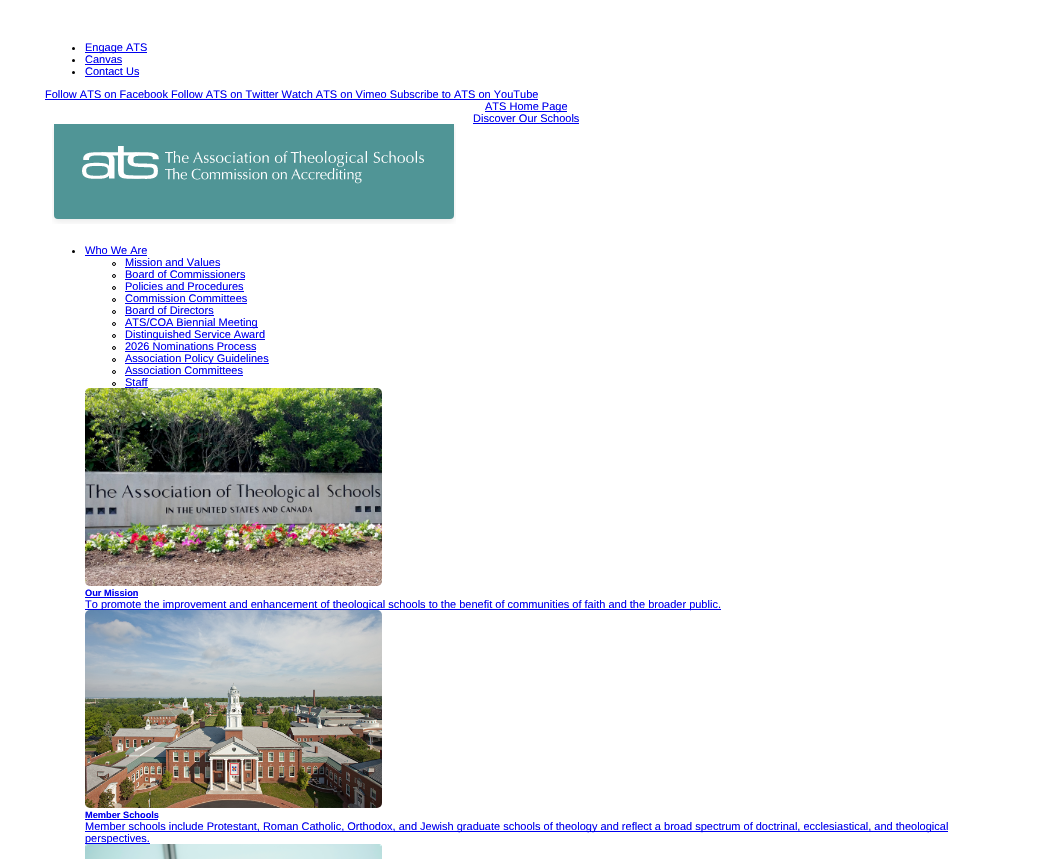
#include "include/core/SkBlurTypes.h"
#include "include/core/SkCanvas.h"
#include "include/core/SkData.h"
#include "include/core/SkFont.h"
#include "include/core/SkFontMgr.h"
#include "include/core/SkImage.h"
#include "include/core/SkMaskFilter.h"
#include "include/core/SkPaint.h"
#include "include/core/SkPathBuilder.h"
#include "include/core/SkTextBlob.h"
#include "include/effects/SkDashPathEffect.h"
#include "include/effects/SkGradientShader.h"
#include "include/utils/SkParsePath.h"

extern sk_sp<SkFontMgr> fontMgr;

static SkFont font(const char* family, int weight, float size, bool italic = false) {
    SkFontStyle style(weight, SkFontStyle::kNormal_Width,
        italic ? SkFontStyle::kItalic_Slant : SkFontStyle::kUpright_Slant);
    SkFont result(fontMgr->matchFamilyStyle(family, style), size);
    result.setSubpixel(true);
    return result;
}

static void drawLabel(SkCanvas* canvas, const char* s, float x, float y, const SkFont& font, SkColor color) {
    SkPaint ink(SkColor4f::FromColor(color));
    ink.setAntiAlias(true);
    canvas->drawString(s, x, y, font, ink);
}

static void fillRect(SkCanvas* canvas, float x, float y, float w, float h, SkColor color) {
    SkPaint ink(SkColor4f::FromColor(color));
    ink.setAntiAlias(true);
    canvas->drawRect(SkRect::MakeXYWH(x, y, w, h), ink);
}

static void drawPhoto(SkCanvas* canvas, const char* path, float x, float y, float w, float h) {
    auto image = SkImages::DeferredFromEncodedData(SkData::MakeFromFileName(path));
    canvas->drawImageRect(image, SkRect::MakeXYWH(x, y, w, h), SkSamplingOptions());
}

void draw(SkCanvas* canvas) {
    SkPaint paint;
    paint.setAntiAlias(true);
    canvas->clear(0xFFFFFFFF);
    paint.setColor(0xFF000000);
    canvas->drawCircle(73.5f, 48.5f, 1.5f, paint);
    fillRect(canvas, 85, 52, 62, 1, 0xFF0000EE);
    SkFont font1 = font("Liberation Sans", 400, 11);
    drawLabel(canvas, "Engage ATS", 85, 51, font1, 0xFF0000EE);
    canvas->drawCircle(73.5f, 60.5f, 1.5f, paint);
    drawLabel(canvas, "Canvas", 85, 63, font1, 0xFF0000EE);
    fillRect(canvas, 85, 64, 37, 1, 0xFF0000EE);
    canvas->drawCircle(73.5f, 72.5f, 1.5f, paint);
    drawLabel(canvas, "Contact Us", 85, 75, font1, 0xFF0000EE);
    fillRect(canvas, 85, 76, 54, 1, 0xFF0000EE);
    drawLabel(canvas, "Follow ATS on Facebook Follow ATS on Twitter Watch ATS on Vimeo Subscribe to ATS on YouTube", 45, 98, font1, 0xFF0000EE);
    fillRect(canvas, 45, 99, 493, 1, 0xFF0000EE);
    fillRect(canvas, 485, 111, 82, 1, 0xFF0000EE);
    drawLabel(canvas, "ATS Home Page", 485, 110, font1, 0xFF0000EE);
    drawLabel(canvas, "Discover Our Schools", 473, 122, font1, 0xFF0000EE);
    fillRect(canvas, 473, 123, 106, 1, 0xFF0000EE);
    drawPhoto(canvas, "assets/img1.png", 52, 124, 404, 100);
    canvas->drawCircle(73.5f, 251.5f, 1.5f, paint);
    drawLabel(canvas, "Who We Are", 85, 254, font1, 0xFF0000EE);
    fillRect(canvas, 85, 255, 62, 1, 0xFF0000EE);
    paint.setStroke(true);
    paint.setStrokeWidth(1);
    canvas->drawCircle(114, 264, 1.5f, paint);
    drawLabel(canvas, "Mission and Values", 125, 266, font1, 0xFF0000EE);
    fillRect(canvas, 125, 267, 95, 1, 0xFF0000EE);
    canvas->drawCircle(114, 276, 1.5f, paint);
    drawLabel(canvas, "Board of Commissioners", 125, 278, font1, 0xFF0000EE);
    fillRect(canvas, 125, 279, 120, 1, 0xFF0000EE);
    canvas->drawCircle(114, 288, 1.5f, paint);
    drawLabel(canvas, "Policies and Procedures", 125, 290, font1, 0xFF0000EE);
    fillRect(canvas, 125, 291, 119, 1, 0xFF0000EE);
    canvas->drawCircle(114, 300, 1.5f, paint);
    drawLabel(canvas, "Commission Committees", 125, 302, font1, 0xFF0000EE);
    fillRect(canvas, 125, 303, 122, 1, 0xFF0000EE);
    canvas->drawCircle(114, 312, 1.5f, paint);
    drawLabel(canvas, "Board of Directors", 125, 314, font1, 0xFF0000EE);
    fillRect(canvas, 125, 315, 89, 1, 0xFF0000EE);
    canvas->drawCircle(114, 324, 1.5f, paint);
    fillRect(canvas, 125, 327, 133, 1, 0xFF0000EE);
    drawLabel(canvas, "ATS/COA Biennial Meeting", 125, 326, font1, 0xFF0000EE);
    canvas->drawCircle(114, 336, 1.5f, paint);
    fillRect(canvas, 125, 339, 140, 1, 0xFF0000EE);
    drawLabel(canvas, "Distinguished Service Award", 125, 338, font1, 0xFF0000EE);
    canvas->drawCircle(114, 348, 1.5f, paint);
    drawLabel(canvas, "2026 Nominations Process", 125, 350, font1, 0xFF0000EE);
    fillRect(canvas, 125, 351, 131, 1, 0xFF0000EE);
    canvas->drawCircle(114, 360, 1.5f, paint);
    fillRect(canvas, 125, 363, 144, 1, 0xFF0000EE);
    drawLabel(canvas, "Association Policy Guidelines", 125, 362, font1, 0xFF0000EE);
    canvas->drawCircle(114, 372, 1.5f, paint);
    drawLabel(canvas, "Association Committees", 125, 374, font1, 0xFF0000EE);
    fillRect(canvas, 125, 375, 118, 1, 0xFF0000EE);
    canvas->drawCircle(114, 384, 1.5f, paint);
    drawLabel(canvas, "Staff", 125, 386, font1, 0xFF0000EE);
    fillRect(canvas, 125, 387, 23, 1, 0xFF0000EE);
    drawPhoto(canvas, "assets/img2.png", 85, 388, 297, 198);
    SkFont font2 = font("Liberation Sans", 700, 9.25f);
    drawLabel(canvas, "Our Mission", 85, 596, font2, 0xFF0000EE);
    fillRect(canvas, 85, 597, 53, 1, 0xFF0000EE);
    fillRect(canvas, 85, 609, 636, 1, 0xFF0000EE);
    drawLabel(canvas, "To promote the improvement and enhancement of theological schools to the benefit of communities of faith and the broader public.", 85, 608, font1, 0xFF0000EE);
    drawPhoto(canvas, "assets/img3.png", 85, 610, 297, 198);
    drawLabel(canvas, "Member Schools", 85, 818, font2, 0xFF0000EE);
    fillRect(canvas, 85, 819, 73, 1, 0xFF0000EE);
    fillRect(canvas, 85, 831, 863, 1, 0xFF0000EE);
    drawLabel(canvas, "Member schools include Protestant, Roman Catholic, Orthodox, and Jewish graduate schools of theology and reflect a broad spectrum of doctrinal, ecclesiastical, and theological", 85, 830, font1, 0xFF0000EE);
    fillRect(canvas, 85, 843, 65, 1, 0xFF0000EE);
    drawLabel(canvas, "perspectives.", 85, 842, font1, 0xFF0000EE);
    drawPhoto(canvas, "assets/img4.png", 85, 844, 297, 15);
}
